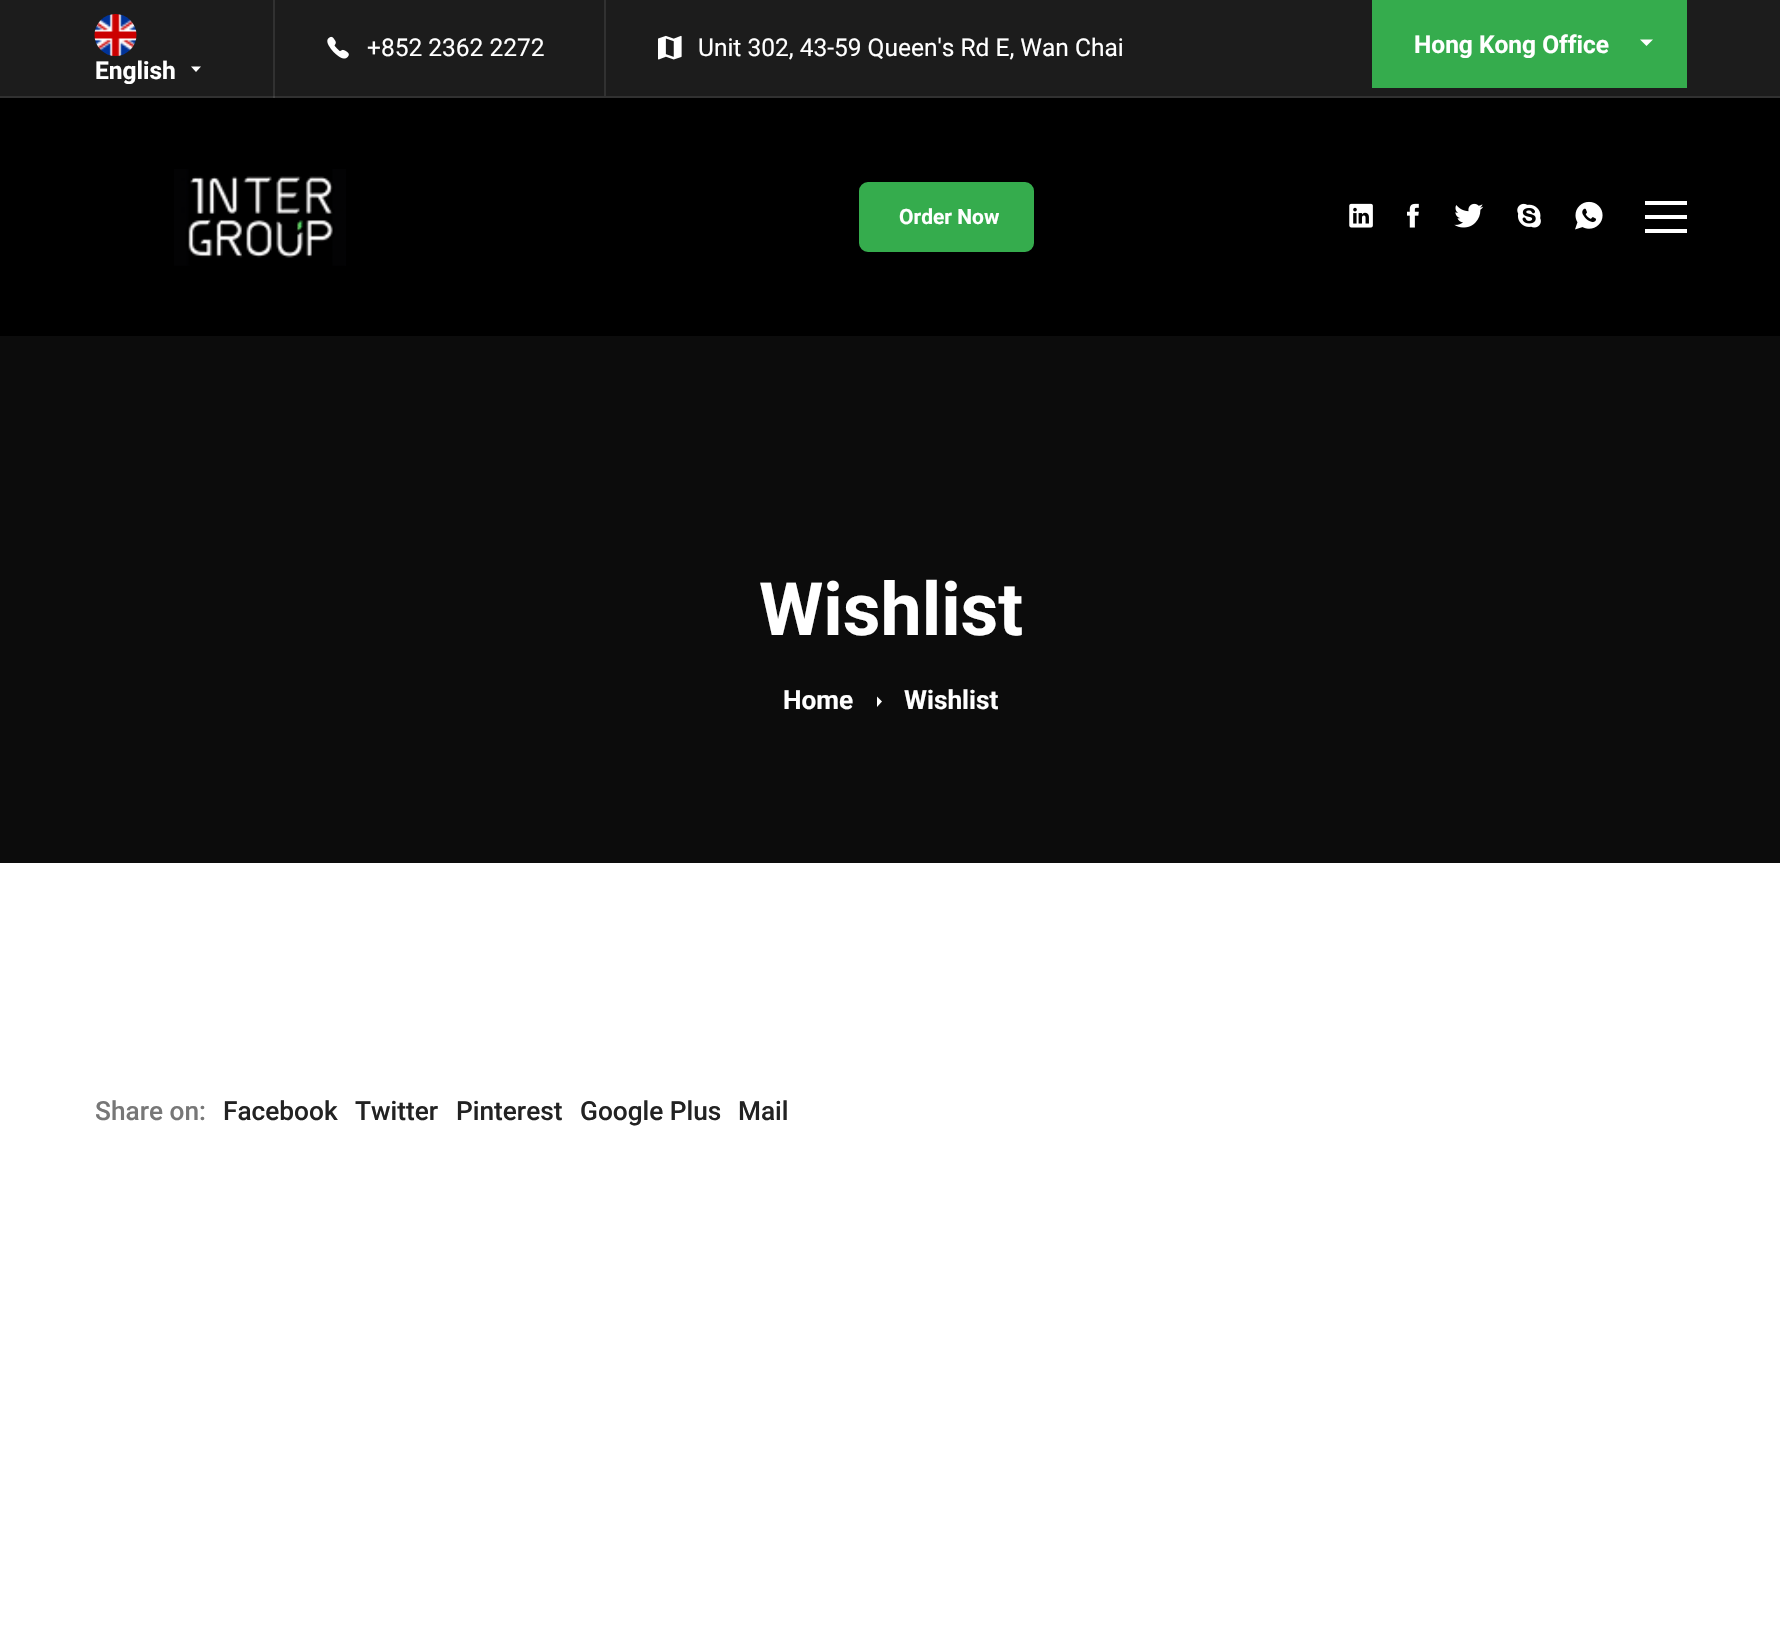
#include "include/core/SkBlurTypes.h"
#include "include/core/SkCanvas.h"
#include "include/core/SkData.h"
#include "include/core/SkFont.h"
#include "include/core/SkFontMgr.h"
#include "include/core/SkImage.h"
#include "include/core/SkMaskFilter.h"
#include "include/core/SkPaint.h"
#include "include/core/SkPathBuilder.h"
#include "include/core/SkTextBlob.h"
#include "include/effects/SkDashPathEffect.h"
#include "include/effects/SkGradientShader.h"
#include "include/utils/SkParsePath.h"

extern sk_sp<SkFontMgr> fontMgr;

static SkFont font(const char* family, int weight, float size, bool italic = false) {
    SkFontStyle style(weight, SkFontStyle::kNormal_Width,
        italic ? SkFontStyle::kItalic_Slant : SkFontStyle::kUpright_Slant);
    SkFont result(fontMgr->matchFamilyStyle(family, style), size);
    result.setSubpixel(true);
    return result;
}

static void drawLabel(SkCanvas* canvas, const char* s, float x, float y, const SkFont& font, SkColor color) {
    SkPaint ink(SkColor4f::FromColor(color));
    ink.setAntiAlias(true);
    canvas->drawString(s, x, y, font, ink);
}

static void fillRect(SkCanvas* canvas, float x, float y, float w, float h, SkColor color) {
    SkPaint ink(SkColor4f::FromColor(color));
    ink.setAntiAlias(true);
    canvas->drawRect(SkRect::MakeXYWH(x, y, w, h), ink);
}

static void drawPhoto(SkCanvas* canvas, const char* path, float x, float y, float w, float h) {
    auto image = SkImages::DeferredFromEncodedData(SkData::MakeFromFileName(path));
    canvas->drawImageRect(image, SkRect::MakeXYWH(x, y, w, h), SkSamplingOptions());
}

static SkPath parsePath(const char* data, bool evenOdd = false) {
    SkPath result = *SkParsePath::FromSVGString(data);
    if (evenOdd) result.setFillType(SkPathFillType::kEvenOdd);
    return result;
}

void draw(SkCanvas* canvas) {
    SkPaint paint;
    paint.setAntiAlias(true);
    canvas->clear(0xFFFFFFFF);
    fillRect(canvas, 0, 0, 1780, 96, 0xFF1C1C1C);
    fillRect(canvas, 0, 96, 1780, 2, 0xFF313131);
    fillRect(canvas, 273, 96, 2, 2, 0xFF444444);
    fillRect(canvas, 273, 0, 2, 96, 0xFF313131);
    drawPhoto(canvas, "assets/img1.png", 327, 36, 22, 23);
    SkFont font1 = font("Roboto", 400, 24.5f);
    drawLabel(canvas, "+852 2362 2272", 367, 56, font1, 0xFFFFFFFF);
    fillRect(canvas, 604, 0, 2, 96, 0xFF313131);
    drawPhoto(canvas, "assets/img2.png", 658, 35, 24, 25);
    drawLabel(canvas, "Unit 302, 43-59 Queen's Rd E, Wan Chai", 698, 56, font1, 0xFFFFFFFF);
    fillRect(canvas, 1372, 0, 315, 88, 0xFF35AC4D);
    SkFont font2 = font("Roboto", 700, 24.5f);
    drawLabel(canvas, "Hong Kong Office", 1414, 53, font2, 0xFFFFFFFF);
    paint.setColor(0xFFFFFFFF);
    canvas->drawPath(parsePath("M1640 39.5H1653L1646.5 46Z"), paint);
    drawPhoto(canvas, "assets/img3.png", 94, 14, 43, 42);
    drawLabel(canvas, "English", 95, 79, font2, 0xFFFFFFFF);
    canvas->drawPath(parsePath("M191 66.5H201L196 72Z"), paint);
    fillRect(canvas, 0, 98, 1780, 238, 0xFF000000);
    drawPhoto(canvas, "assets/img4.png", 174, 169, 172, 97);
    paint.setColor(0xFF35AC4D);
    canvas->drawRoundRect(SkRect::MakeXYWH(861, 184, 171, 66), 7, 7, paint);
    paint.setStroke(true);
    paint.setStrokeWidth(4);
    canvas->drawRoundRect(SkRect::MakeXYWH(861, 184, 171, 66), 7, 7, paint);
    SkFont font3 = font("Roboto", 700, 21);
    drawLabel(canvas, "Order Now", 899, 224, font3, 0xFFFFFFFF);
    drawPhoto(canvas, "assets/img5.png", 1349, 203, 24, 25);
    drawPhoto(canvas, "assets/img6.png", 1407, 203, 12, 25);
    drawPhoto(canvas, "assets/img7.png", 1454, 203, 30, 25);
    drawPhoto(canvas, "assets/img8.png", 1517, 203, 24, 25);
    drawPhoto(canvas, "assets/img9.png", 1575, 201, 28, 29);
    fillRect(canvas, 1645, 215, 42, 4, 0xFFFFFFFF);
    fillRect(canvas, 1645, 201, 42, 4, 0xFFFFFFFF);
    fillRect(canvas, 1645, 229, 42, 4, 0xFFFFFFFF);
    fillRect(canvas, 0, 336, 1780, 527, 0xFF0C0C0C);
    SkFont font4 = font("Roboto", 700, 73.5f);
    drawLabel(canvas, "Wishlist", 759, 635, font4, 0xFFFFFFFF);
    SkFont font5 = font("Roboto", 700, 26.25f);
    drawLabel(canvas, "Home", 783, 709, font5, 0xFFFFFFFF);
    paint.setStroke(false);
    paint.setColor(0xFFFFFFFF);
    canvas->drawPath(parsePath("M877 696.5L882 701.5L877 707Z"), paint);
    drawLabel(canvas, "Wishlist", 904, 709, font5, 0xFFFFFFFF);
    SkFont font6 = font("Roboto", 500, 26.25f);
    drawLabel(canvas, "Share on:", 95, 1120, font6, 0xFF777777);
    drawLabel(canvas, "Facebook", 223, 1120, font6, 0xFF222222);
    drawLabel(canvas, "Twitter", 355, 1120, font6, 0xFF222222);
    drawLabel(canvas, "Pinterest", 456, 1120, font6, 0xFF222222);
    drawLabel(canvas, "Google Plus", 580, 1120, font6, 0xFF222222);
    drawLabel(canvas, "Mail", 738, 1120, font6, 0xFF222222);
}
